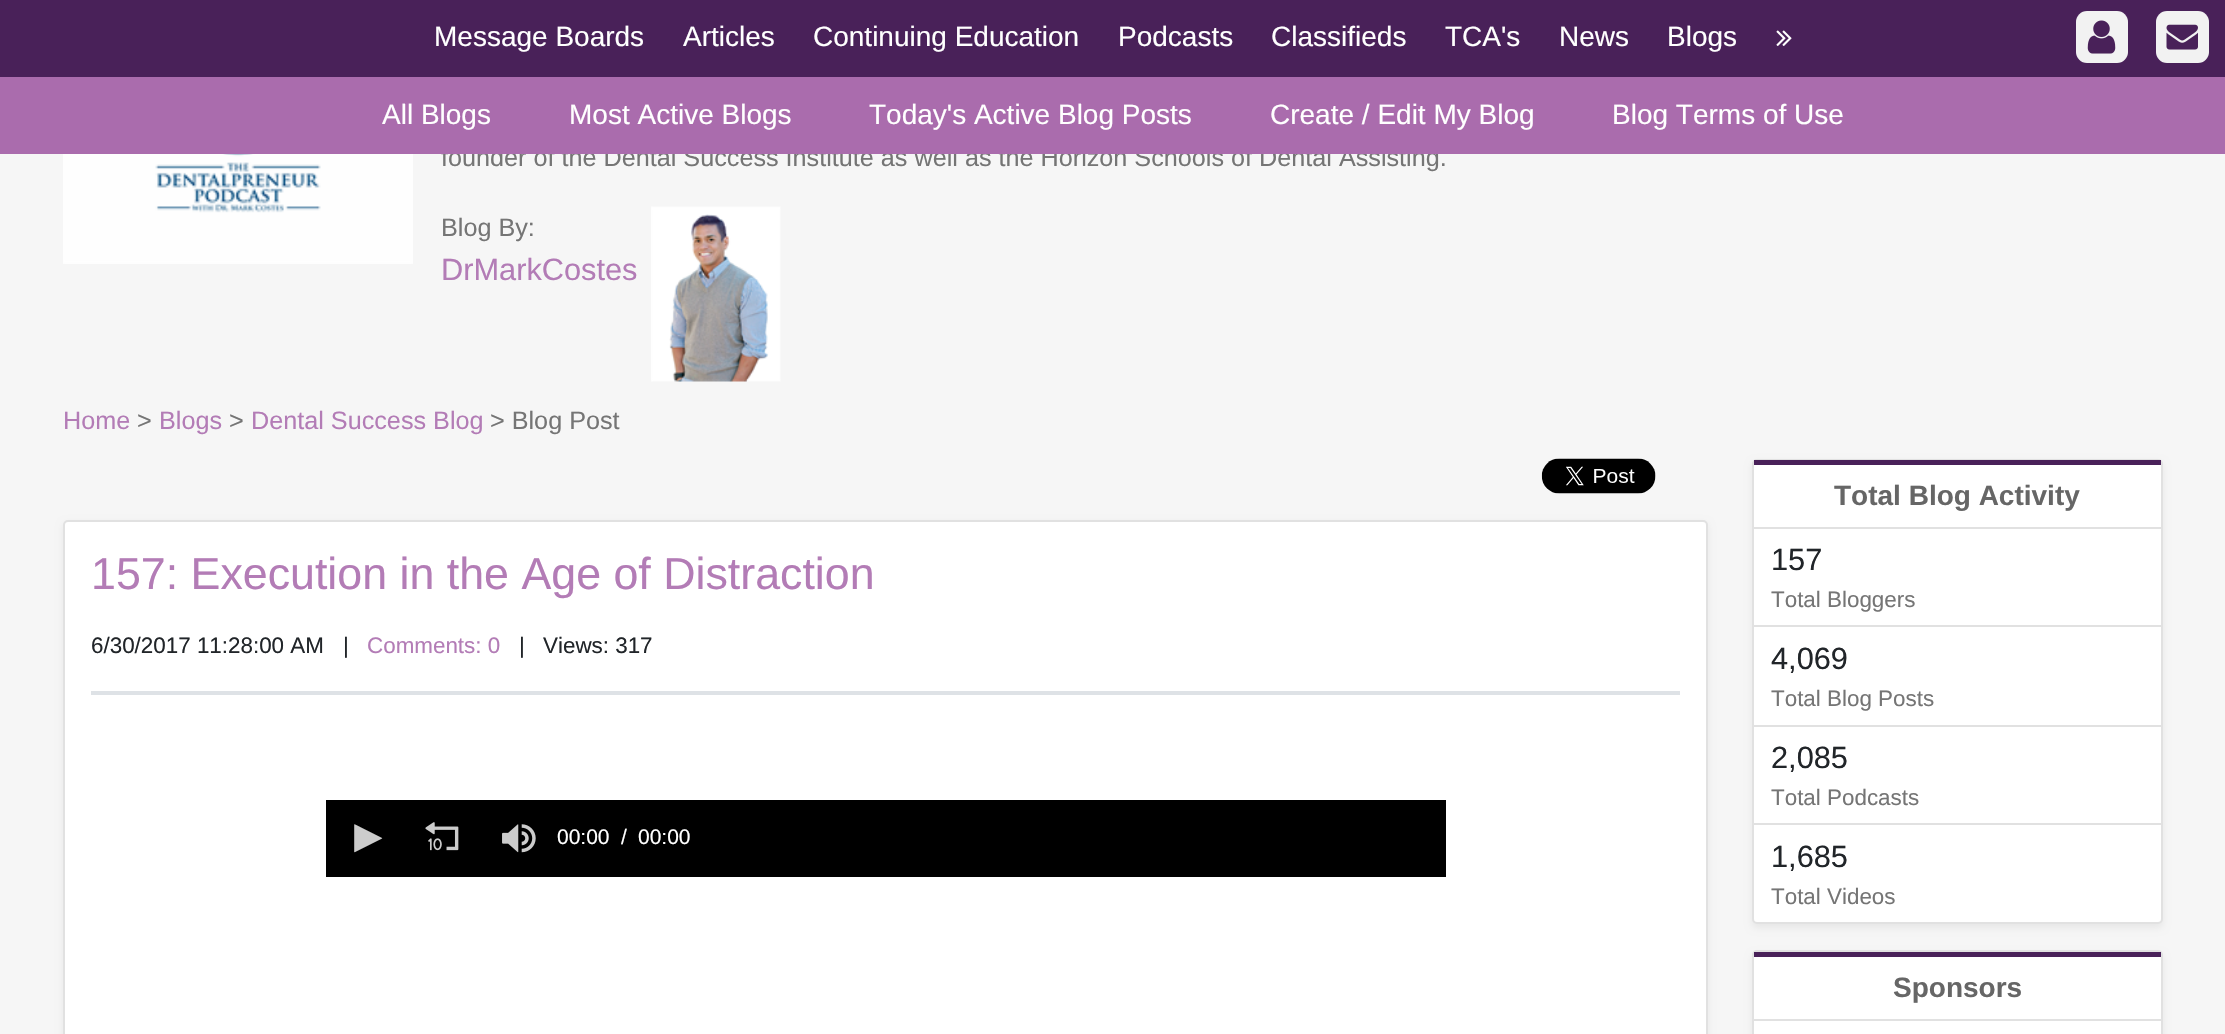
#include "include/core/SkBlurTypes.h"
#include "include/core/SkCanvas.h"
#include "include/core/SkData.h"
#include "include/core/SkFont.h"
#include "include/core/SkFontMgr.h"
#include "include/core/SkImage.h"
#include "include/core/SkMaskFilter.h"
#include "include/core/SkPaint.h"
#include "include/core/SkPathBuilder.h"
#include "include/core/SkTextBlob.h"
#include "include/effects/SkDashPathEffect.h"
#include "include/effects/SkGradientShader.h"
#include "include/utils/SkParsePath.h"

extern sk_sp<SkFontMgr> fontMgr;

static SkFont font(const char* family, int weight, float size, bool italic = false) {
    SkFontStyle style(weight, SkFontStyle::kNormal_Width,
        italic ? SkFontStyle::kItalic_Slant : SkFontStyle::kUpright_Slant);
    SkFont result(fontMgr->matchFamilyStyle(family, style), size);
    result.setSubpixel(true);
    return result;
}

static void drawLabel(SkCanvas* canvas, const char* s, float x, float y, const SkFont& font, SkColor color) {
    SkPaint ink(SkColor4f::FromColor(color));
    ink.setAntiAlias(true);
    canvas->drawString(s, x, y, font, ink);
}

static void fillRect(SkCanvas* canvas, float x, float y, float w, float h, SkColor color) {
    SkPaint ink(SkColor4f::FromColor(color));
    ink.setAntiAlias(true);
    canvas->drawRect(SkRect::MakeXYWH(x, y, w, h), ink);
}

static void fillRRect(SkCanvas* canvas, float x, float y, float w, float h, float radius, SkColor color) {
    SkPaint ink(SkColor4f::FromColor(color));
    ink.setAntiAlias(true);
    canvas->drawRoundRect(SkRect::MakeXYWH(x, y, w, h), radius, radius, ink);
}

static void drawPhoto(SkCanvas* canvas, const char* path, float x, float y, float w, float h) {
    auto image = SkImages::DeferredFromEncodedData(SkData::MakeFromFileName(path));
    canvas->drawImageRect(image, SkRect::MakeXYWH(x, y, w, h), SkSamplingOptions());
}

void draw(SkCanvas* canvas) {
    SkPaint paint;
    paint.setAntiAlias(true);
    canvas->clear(0xFFF6F6F6);
    fillRect(canvas, 0, 0, 2225, 77, 0xFF492159);
    SkFont font1 = font("Liberation Sans", 400, 28);
    drawLabel(canvas, "Message Boards", 434, 46, font1, 0xFFFFFFFF);
    drawLabel(canvas, "Articles", 683, 46, font1, 0xFFFFFFFF);
    drawLabel(canvas, "Continuing Education", 813, 46, font1, 0xFFFFFFFF);
    drawLabel(canvas, "Podcasts", 1118, 46, font1, 0xFFFFFFFF);
    drawLabel(canvas, "Classifieds", 1271, 46, font1, 0xFFFFFFFF);
    drawLabel(canvas, "TCA's", 1445, 46, font1, 0xFFFFFFFF);
    drawLabel(canvas, "News", 1559, 46, font1, 0xFFFFFFFF);
    drawLabel(canvas, "Blogs", 1667, 46, font1, 0xFFFFFFFF);
    drawPhoto(canvas, "assets/img1.png", 1776, 30, 16, 16);
    fillRRect(canvas, 2076, 11, 52, 52, 11, 0xFFF2F2F2);
    drawPhoto(canvas, "assets/img2.png", 2087, 20, 29, 34);
    fillRRect(canvas, 2156, 11, 53, 52, 11, 0xFFF2F2F2);
    drawPhoto(canvas, "assets/img3.png", 2166, 24, 32, 26);
    SkFont font2 = font("Liberation Sans", 400, 25.2f);
    drawLabel(canvas, "founder of the Dental Success Institute as well as the Horizon Schools of Dental Assisting.", 441, 166, font2, 0xFF757575);
    fillRect(canvas, 0, 77, 2225, 77, 0xFFAA6CAD);
    drawLabel(canvas, "All Blogs", 382, 124, font1, 0xFFFFFFFF);
    drawLabel(canvas, "Most Active Blogs", 569, 124, font1, 0xFFFFFFFF);
    drawLabel(canvas, "Today's Active Blog Posts", 869, 124, font1, 0xFFFFFFFF);
    drawLabel(canvas, "Create / Edit My Blog", 1270, 124, font1, 0xFFFFFFFF);
    drawLabel(canvas, "Blog Terms of Use", 1612, 124, font1, 0xFFFFFFFF);
    drawPhoto(canvas, "assets/img4.png", 63, 154, 350, 110);
    drawLabel(canvas, "Blog By:", 441, 236, font2, 0xFF757575);
    SkFont font3 = font("Liberation Sans", 400, 30.75f);
    drawLabel(canvas, "DrMarkCostes", 441, 280, font3, 0xFFB37CB6);
    drawPhoto(canvas, "assets/img5.png", 651, 206, 130, 176);
    drawLabel(canvas, "Home", 63, 429, font2, 0xFFB37CB6);
    drawLabel(canvas, ">", 137, 429, font2, 0xFF757575);
    drawLabel(canvas, "Blogs", 159, 429, font2, 0xFFB37CB6);
    drawLabel(canvas, ">", 229, 429, font2, 0xFF757575);
    drawLabel(canvas, "Dental Success Blog", 251, 429, font2, 0xFFB37CB6);
    drawLabel(canvas, "> Blog Post", 490, 429, font2, 0xFF757575);
    drawPhoto(canvas, "assets/img6.png", 1541, 458, 115, 36);
    paint.setColor(0x0F000000);
    paint.setMaskFilter(SkMaskFilter::MakeBlur(kNormal_SkBlurStyle, 3.5f));
    canvas->drawRoundRect(SkRect::MakeXYWH(63, 523, 1645, 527), 5, 5, paint);
    paint.setMaskFilter(nullptr);
    paint.setColor(0xFFFFFFFF);
    canvas->drawRoundRect(SkRect::MakeXYWH(64, 521, 1643, 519), 4, 4, paint);
    paint.setStroke(true);
    paint.setStrokeWidth(2);
    paint.setColor(0xFFE1E1E1);
    canvas->drawRoundRect(SkRect::MakeXYWH(64, 521, 1643, 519), 4, 4, paint);
    SkFont font4 = font("Liberation Sans", 400, 44.75f);
    drawLabel(canvas, "157: Execution in the Age of Distraction", 91, 589, font4, 0xFFB37CB6);
    SkFont font5 = font("Liberation Sans", 400, 22.4f);
    drawLabel(canvas, "6/30/2017 11:28:00 AM", 91, 653, font5, 0xFF212529);
    drawLabel(canvas, "|", 343, 653, font5, 0xFF212529);
    drawLabel(canvas, "Comments: 0", 367, 653, font5, 0xFFB37CB6);
    drawLabel(canvas, "|", 519, 653, font5, 0xFF212529);
    drawLabel(canvas, "Views: 317", 543, 653, font5, 0xFF212529);
    fillRect(canvas, 91, 691, 1589, 4, 0xFFDEE2E6);
    fillRect(canvas, 326, 800, 1120, 77, 0xFF000000);
    drawPhoto(canvas, "assets/img7.png", 354, 824, 29, 29);
    drawPhoto(canvas, "assets/img8.png", 425, 822, 34, 29);
    drawPhoto(canvas, "assets/img9.png", 502, 824, 34, 29);
    SkFont font6 = font("Liberation Sans", 400, 21);
    drawLabel(canvas, "00:00", 557, 844, font6, 0xFFFFFFFF);
    drawLabel(canvas, "/", 621, 844, font6, 0xFFFFFFFF);
    drawLabel(canvas, "00:00", 638, 844, font6, 0xFFFFFFFF);
    paint.setStroke(false);
    paint.setColor(0x0F000000);
    paint.setMaskFilter(SkMaskFilter::MakeBlur(kNormal_SkBlurStyle, 3.5f));
    canvas->drawRoundRect(SkRect::MakeXYWH(1752, 462, 411, 466), 5, 5, paint);
    paint.setMaskFilter(nullptr);
    paint.setColor(0xFFFFFFFF);
    canvas->drawRoundRect(SkRect::MakeXYWH(1753, 460, 409, 463), 4, 4, paint);
    paint.setStroke(true);
    paint.setColor(0xFFE1E1E1);
    canvas->drawRoundRect(SkRect::MakeXYWH(1753, 460, 409, 463), 4, 4, paint);
    fillRect(canvas, 1754, 460, 407, 5, 0xFF492159);
    fillRect(canvas, 1754, 527, 407, 2, 0xFFE1E1E1);
    SkFont font7 = font("Liberation Sans", 700, 28);
    drawLabel(canvas, "Total Blog Activity", 1834, 505, font7, 0xFF666666);
    fillRect(canvas, 1754, 625, 407, 2, 0xFFE1E1E1);
    drawLabel(canvas, "157", 1771, 570, font3, 0xFF212529);
    drawLabel(canvas, "Total Bloggers", 1771, 607, font5, 0xFF757575);
    fillRect(canvas, 1754, 725, 407, 2, 0xFFE1E1E1);
    drawLabel(canvas, "4,069", 1771, 669, font3, 0xFF212529);
    drawLabel(canvas, "Total Blog Posts", 1771, 706, font5, 0xFF757575);
    fillRect(canvas, 1754, 823, 407, 2, 0xFFE1E1E1);
    drawLabel(canvas, "2,085", 1771, 768, font3, 0xFF212529);
    drawLabel(canvas, "Total Podcasts", 1771, 805, font5, 0xFF757575);
    drawLabel(canvas, "1,685", 1771, 867, font3, 0xFF212529);
    drawLabel(canvas, "Total Videos", 1771, 904, font5, 0xFF757575);
    paint.setStroke(false);
    paint.setColor(0x0F000000);
    paint.setMaskFilter(SkMaskFilter::MakeBlur(kNormal_SkBlurStyle, 3.5f));
    canvas->drawRoundRect(SkRect::MakeXYWH(1752, 954, 411, 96), 5, 5, paint);
    paint.setMaskFilter(nullptr);
    paint.setColor(0xFFFFFFFF);
    canvas->drawRoundRect(SkRect::MakeXYWH(1753, 951, 409, 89), 4, 4, paint);
    paint.setStroke(true);
    paint.setColor(0xFFE1E1E1);
    canvas->drawRoundRect(SkRect::MakeXYWH(1753, 951, 409, 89), 4, 4, paint);
    fillRect(canvas, 1754, 952, 407, 5, 0xFF492159);
    fillRect(canvas, 1754, 1019, 407, 2, 0xFFE1E1E1);
    drawLabel(canvas, "Sponsors", 1893, 997, font7, 0xFF666666);
}
